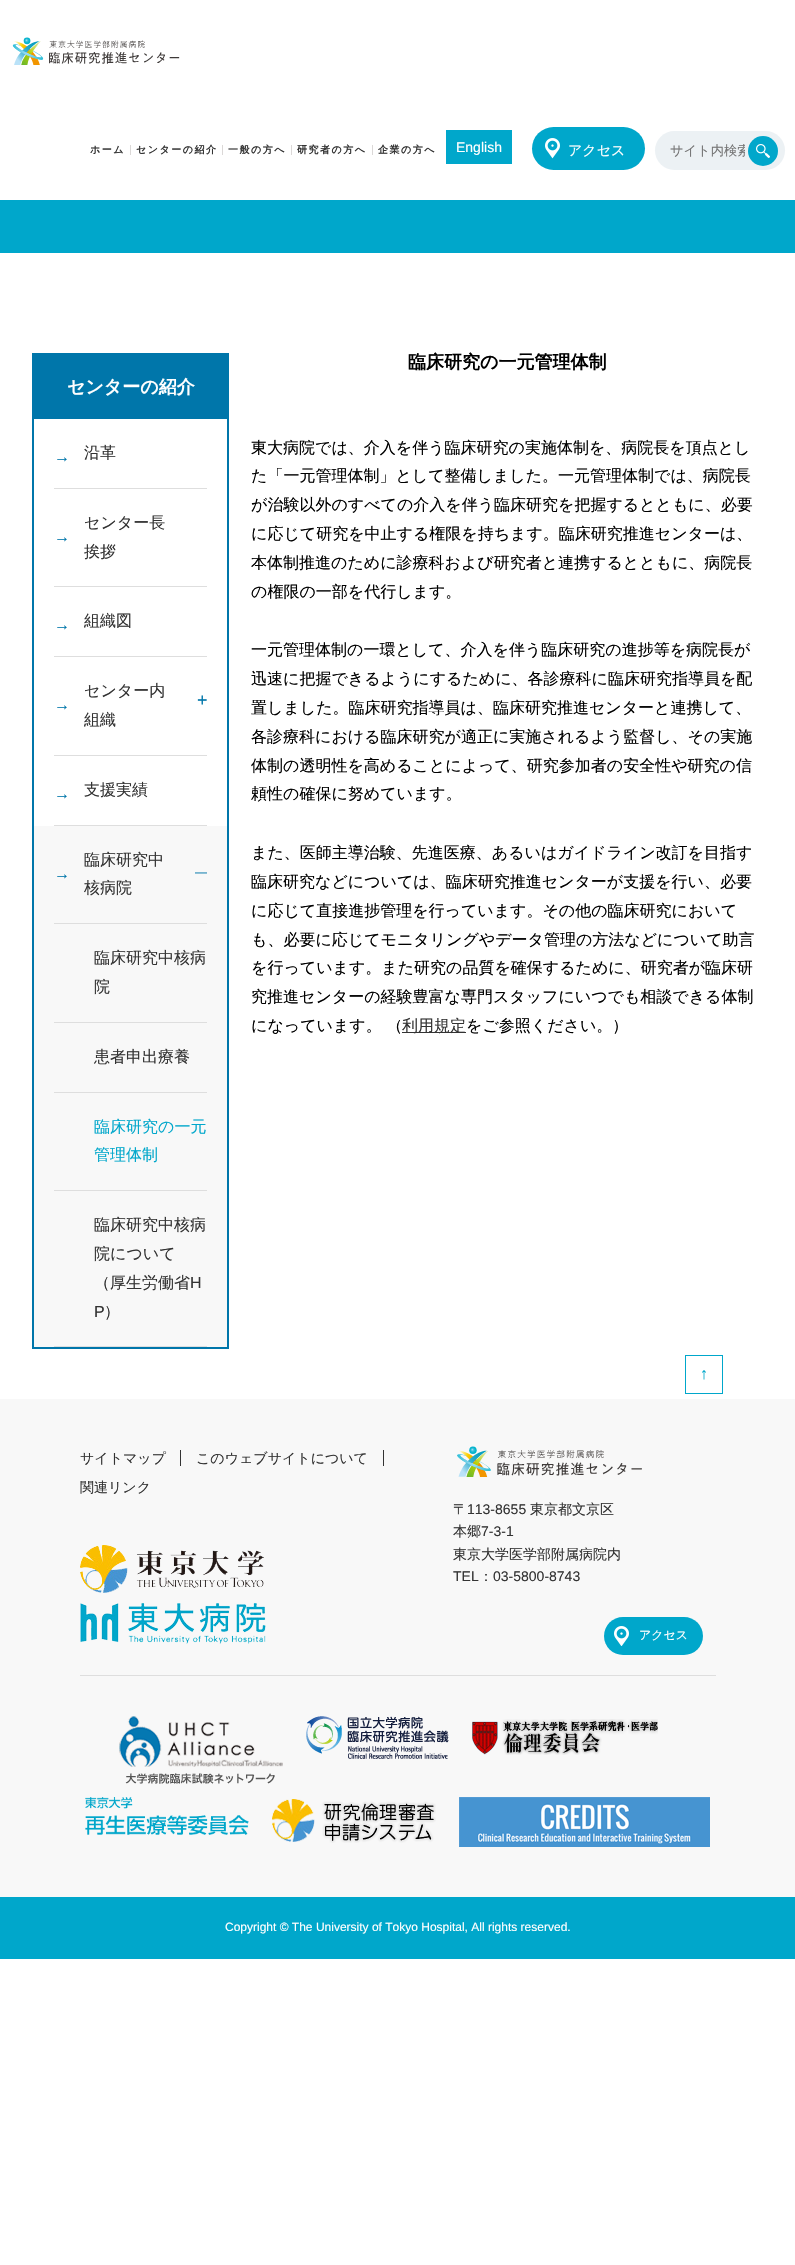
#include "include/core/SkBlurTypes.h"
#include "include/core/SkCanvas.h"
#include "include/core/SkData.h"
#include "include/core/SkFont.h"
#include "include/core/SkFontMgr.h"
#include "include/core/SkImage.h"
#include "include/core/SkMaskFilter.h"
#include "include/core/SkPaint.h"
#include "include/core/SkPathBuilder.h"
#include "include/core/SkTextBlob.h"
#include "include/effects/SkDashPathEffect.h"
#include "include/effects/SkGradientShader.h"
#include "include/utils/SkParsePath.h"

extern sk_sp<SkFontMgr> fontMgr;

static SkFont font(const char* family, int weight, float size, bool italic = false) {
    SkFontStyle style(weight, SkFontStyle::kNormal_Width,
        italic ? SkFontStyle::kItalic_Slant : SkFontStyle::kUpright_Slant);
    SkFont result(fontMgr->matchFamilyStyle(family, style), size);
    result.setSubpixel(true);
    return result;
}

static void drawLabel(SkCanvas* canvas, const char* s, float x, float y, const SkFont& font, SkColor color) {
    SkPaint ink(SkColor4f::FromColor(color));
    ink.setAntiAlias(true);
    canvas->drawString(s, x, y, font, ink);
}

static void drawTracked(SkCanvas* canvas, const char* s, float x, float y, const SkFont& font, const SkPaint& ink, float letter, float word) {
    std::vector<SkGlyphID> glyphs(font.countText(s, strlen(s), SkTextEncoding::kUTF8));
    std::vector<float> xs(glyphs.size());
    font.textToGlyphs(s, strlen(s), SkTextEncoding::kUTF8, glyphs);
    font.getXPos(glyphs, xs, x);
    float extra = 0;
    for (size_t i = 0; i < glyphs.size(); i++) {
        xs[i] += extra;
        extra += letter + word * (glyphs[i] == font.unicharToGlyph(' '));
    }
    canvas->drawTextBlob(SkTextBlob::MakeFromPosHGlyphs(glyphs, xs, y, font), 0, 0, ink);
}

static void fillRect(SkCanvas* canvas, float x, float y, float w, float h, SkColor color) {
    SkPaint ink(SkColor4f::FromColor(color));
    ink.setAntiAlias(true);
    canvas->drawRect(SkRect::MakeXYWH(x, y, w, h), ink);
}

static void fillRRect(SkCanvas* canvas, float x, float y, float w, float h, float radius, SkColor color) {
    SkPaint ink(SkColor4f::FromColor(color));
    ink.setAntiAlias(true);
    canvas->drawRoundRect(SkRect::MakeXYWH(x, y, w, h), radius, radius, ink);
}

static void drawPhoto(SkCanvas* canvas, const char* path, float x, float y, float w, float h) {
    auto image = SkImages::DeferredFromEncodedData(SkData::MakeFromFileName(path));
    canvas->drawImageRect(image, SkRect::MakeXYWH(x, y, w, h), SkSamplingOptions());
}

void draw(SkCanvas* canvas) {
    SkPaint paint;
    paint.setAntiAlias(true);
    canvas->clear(0xFFFFFFFF);
    drawPhoto(canvas, "assets/img1.png", 12, 37, 168, 28);
    SkFont font1 = font("WenQuanYi Zen Hei", 700, 10);
    paint.setColor(0xFF333333);
    drawTracked(canvas, "ホーム", 90, 153, font1, paint, 1.5f, 0);
    fillRect(canvas, 130, 145, 1, 10, 0xFFDBD8D7);
    drawTracked(canvas, "センターの紹介", 136, 153, font1, paint, 1.5f, 0);
    fillRect(canvas, 222, 145, 1, 10, 0xFFDBD8D7);
    drawTracked(canvas, "一般の方へ", 228, 153, font1, paint, 1.5f, 0);
    fillRect(canvas, 291, 145, 1, 10, 0xFFDBD8D7);
    drawTracked(canvas, "研究者の方へ", 297, 153, font1, paint, 1.5f, 0);
    fillRect(canvas, 372, 145, 1, 10, 0xFFDBD8D7);
    drawTracked(canvas, "企業の方へ", 378, 153, font1, paint, 1.5f, 0);
    fillRect(canvas, 446, 130, 66, 34, 0xFF00A7CB);
    SkFont font2 = font("Liberation Sans", 400, 14);
    drawLabel(canvas, "English", 456, 152, font2, 0xFFFFFFFF);
    fillRRect(canvas, 532, 127, 113, 43, 21.5f, 0xFF00A7CB);
    drawPhoto(canvas, "assets/img2.png", 545, 138, 15, 21);
    SkFont font3 = font("WenQuanYi Zen Hei", 500, 14);
    drawLabel(canvas, "アクセス", 568, 155, font3, 0xFFFFFFFF);
    fillRRect(canvas, 655, 131, 130, 39, 19.5f, 0xFFECF1F4);
    canvas->save();
    canvas->clipRect(SkRect::MakeXYWH(670, 142, 75, 18));
    SkFont font4 = font("WenQuanYi Zen Hei", 500, 13.25f);
    drawLabel(canvas, "サイト内検索", 670, 155, font4, 0xFF757575);
    canvas->restore();
    paint.setColor(0xFF00A7CB);
    canvas->drawCircle(763, 151, 15, paint);
    drawPhoto(canvas, "assets/img3.png", 756, 144, 14, 14);
    fillRect(canvas, 0, 200, 795, 53, 0xFF00A7CB);
    paint.setStroke(true);
    paint.setStrokeWidth(2);
    paint.setColor(0xFF0076AA);
    canvas->drawRect(SkRect::MakeXYWH(33, 354, 195, 994), paint);
    fillRect(canvas, 34, 355, 193, 64, 0xFF0076AA);
    SkFont font5 = font("WenQuanYi Zen Hei", 700, 18);
    drawLabel(canvas, "センターの紹介", 67, 393, font5, 0xFFFFFFFF);
    fillRect(canvas, 54, 488, 153, 1, 0xFFDEDEDE);
    SkFont font6 = font("Liberation Sans", 400, 16);
    drawLabel(canvas, "→", 54, 462, font6, 0xFF0076AA);
    SkFont font7 = font("WenQuanYi Zen Hei", 500, 16);
    drawLabel(canvas, "沿革", 84, 458, font7, 0xFF333333);
    fillRect(canvas, 54, 586, 153, 1, 0xFFDEDEDE);
    drawLabel(canvas, "センター長", 84, 528, font7, 0xFF333333);
    drawLabel(canvas, "→", 54, 542, font6, 0xFF0076AA);
    drawLabel(canvas, "挨拶", 84, 557, font7, 0xFF333333);
    fillRect(canvas, 54, 656, 153, 1, 0xFFDEDEDE);
    drawLabel(canvas, "→", 54, 630, font6, 0xFF0076AA);
    drawLabel(canvas, "組織図", 84, 626, font7, 0xFF333333);
    fillRect(canvas, 54, 755, 153, 1, 0xFFDEDEDE);
    drawLabel(canvas, "センター内", 84, 696, font7, 0xFF333333);
    SkFont font8 = font("Liberation Sans", 400, 18);
    drawLabel(canvas, "+", 197, 706, font8, 0xFF0076AA);
    drawLabel(canvas, "→", 54, 710, font6, 0xFF0076AA);
    drawLabel(canvas, "組織", 84, 725, font7, 0xFF333333);
    fillRect(canvas, 54, 825, 153, 1, 0xFFDEDEDE);
    drawLabel(canvas, "→", 54, 799, font6, 0xFF0076AA);
    drawLabel(canvas, "支援実績", 84, 795, font7, 0xFF333333);
    fillRect(canvas, 34, 826, 193, 521, 0xFFF8F8F8);
    fillRect(canvas, 54, 923, 153, 1, 0xFFDEDEDE);
    drawLabel(canvas, "臨床研究中", 84, 865, font7, 0xFF333333);
    SkFont font9 = font("Liberation Sans", 400, 12);
    drawLabel(canvas, "―", 195, 876, font9, 0xFF0076AA);
    drawLabel(canvas, "→", 54, 879, font6, 0xFF0076AA);
    drawLabel(canvas, "核病院", 84, 893, font7, 0xFF333333);
    fillRect(canvas, 54, 1022, 153, 1, 0xFFDEDEDE);
    drawLabel(canvas, "臨床研究中核病", 94, 963, font7, 0xFF333333);
    drawLabel(canvas, "院", 94, 992, font7, 0xFF333333);
    fillRect(canvas, 54, 1092, 153, 1, 0xFFDEDEDE);
    drawLabel(canvas, "患者申出療養", 94, 1062, font7, 0xFF333333);
    fillRect(canvas, 54, 1190, 153, 1, 0xFFDEDEDE);
    drawLabel(canvas, "臨床研究の一元", 94, 1132, font7, 0xFF00A7CB);
    drawLabel(canvas, "管理体制", 94, 1160, font7, 0xFF00A7CB);
    fillRect(canvas, 54, 1346, 153, 1, 0xFFDEDEDE);
    drawLabel(canvas, "臨床研究中核病", 94, 1230, font7, 0xFF333333);
    drawLabel(canvas, "院について", 94, 1259, font7, 0xFF333333);
    drawLabel(canvas, "（厚生労働省", 94, 1288, font7, 0xFF333333);
    drawLabel(canvas, "H", 190, 1288, font6, 0xFF333333);
    drawLabel(canvas, "P", 94, 1317, font6, 0xFF333333);
    drawLabel(canvas, "）", 104, 1317, font7, 0xFF333333);
    drawLabel(canvas, "臨床研究の一元管理体制", 408, 368, font5, 0xFF000000);
    drawLabel(canvas, "東大病院では、介入を伴う臨床研究の実施体制を、病院長を頂点とし", 251, 453, font7, 0xFF000000);
    drawLabel(canvas, "た「一元管理体制」として整備しました。一元管理体制では、病院長", 251, 481, font7, 0xFF000000);
    drawLabel(canvas, "が治験以外のすべての介入を伴う臨床研究を把握するとともに、必要", 251, 510, font7, 0xFF000000);
    drawLabel(canvas, "に応じて研究を中止する権限を持ちます。臨床研究推進センターは、", 251, 539, font7, 0xFF000000);
    drawLabel(canvas, "本体制推進のために診療科および研究者と連携するとともに、病院長", 251, 568, font7, 0xFF000000);
    drawLabel(canvas, "の権限の一部を代行します。", 251, 597, font7, 0xFF000000);
    drawLabel(canvas, "一元管理体制の一環として、介入を伴う臨床研究の進捗等を病院長が", 251, 655, font7, 0xFF000000);
    drawLabel(canvas, "迅速に把握できるようにするために、各診療科に臨床研究指導員を配", 251, 684, font7, 0xFF000000);
    drawLabel(canvas, "置しました。臨床研究指導員は、臨床研究推進センターと連携して、", 251, 713, font7, 0xFF000000);
    drawLabel(canvas, "各診療科における臨床研究が適正に実施されるよう監督し、その実施", 251, 742, font7, 0xFF000000);
    drawLabel(canvas, "体制の透明性を高めることによって、研究参加者の安全性や研究の信", 251, 771, font7, 0xFF000000);
    drawLabel(canvas, "頼性の確保に努めています。", 251, 799, font7, 0xFF000000);
    drawLabel(canvas, "また、医師主導治験、先進医療、あるいはガイドライン改訂を目指す", 251, 858, font7, 0xFF000000);
    drawLabel(canvas, "臨床研究などについては、臨床研究推進センターが支援を行い、必要", 251, 887, font7, 0xFF000000);
    drawLabel(canvas, "に応じて直接進捗管理を行っています。その他の臨床研究において", 251, 916, font7, 0xFF000000);
    drawLabel(canvas, "も、必要に応じてモニタリングやデータ管理の方法などについて助言", 251, 945, font7, 0xFF000000);
    drawLabel(canvas, "を行っています。また研究の品質を確保するために、研究者が臨床研", 251, 973, font7, 0xFF000000);
    drawLabel(canvas, "究推進センターの経験豊富な専門スタッフにいつでも相談できる体制", 251, 1002, font7, 0xFF000000);
    drawLabel(canvas, "になっています。 （", 251, 1031, font7, 0xFF000000);
    fillRect(canvas, 402, 1032, 64, 1, 0xFF333333);
    drawLabel(canvas, "利用規定", 402, 1031, font7, 0xFF333333);
    drawLabel(canvas, "をご参照ください。）", 466, 1031, font7, 0xFF000000);
    fillRect(canvas, 0, 1399, 795, 498, 0xFFF8F8F8);
    paint.setStrokeWidth(1);
    paint.setColor(0xFF00A7CB);
    canvas->drawRect(SkRect::MakeXYWH(685.5f, 1355.5f, 37, 38), paint);
    drawLabel(canvas, "↑", 700, 1379, font6, 0xFF00A7CB);
    fillRect(canvas, 80, 1675, 636, 1, 0xFFDEDEDE);
    drawLabel(canvas, "サイトマップ", 80, 1463, font3, 0xFF333333);
    fillRect(canvas, 180, 1450, 1, 16, 0xFF333333);
    drawLabel(canvas, "このウェブサイトについて", 196, 1463, font3, 0xFF333333);
    fillRect(canvas, 383, 1450, 1, 16, 0xFF333333);
    drawLabel(canvas, "関連リンク", 80, 1492, font3, 0xFF333333);
    drawPhoto(canvas, "assets/img4.png", 80, 1545, 184, 48);
    drawPhoto(canvas, "assets/img5.png", 80, 1603, 186, 41);
    drawPhoto(canvas, "assets/img6.png", 457, 1446, 185, 31);
    drawLabel(canvas, "〒", 453, 1514, font3, 0xFF333333);
    drawLabel(canvas, "113-8655", 467, 1514, font2, 0xFF333333);
    drawLabel(canvas, "東京都文京区", 530, 1514, font3, 0xFF333333);
    drawLabel(canvas, "本郷", 453, 1536, font3, 0xFF333333);
    drawLabel(canvas, "7-3-1", 481, 1536, font2, 0xFF333333);
    drawLabel(canvas, "東京大学医学部附属病院内", 453, 1559, font3, 0xFF333333);
    drawLabel(canvas, "TEL", 453, 1581, font2, 0xFF333333);
    drawLabel(canvas, "：", 479, 1581, font3, 0xFF333333);
    drawLabel(canvas, "03-5800-8743", 493, 1581, font2, 0xFF333333);
    fillRRect(canvas, 604, 1617, 99, 38, 19, 0xFF00A7CB);
    drawPhoto(canvas, "assets/img7.png", 614, 1626, 15, 20);
    SkFont font10 = font("WenQuanYi Zen Hei", 500, 12);
    drawLabel(canvas, "アクセス", 639, 1639, font10, 0xFFFFFFFF);
    drawPhoto(canvas, "assets/img8.png", 119, 1716, 164, 68);
    drawPhoto(canvas, "assets/img9.png", 306, 1716, 143, 43);
    drawPhoto(canvas, "assets/img10.png", 472, 1719, 186, 36);
    drawPhoto(canvas, "assets/img11.png", 85, 1797, 164, 38);
    drawPhoto(canvas, "assets/img12.png", 272, 1799, 164, 44);
    drawPhoto(canvas, "assets/img13.png", 459, 1797, 251, 50);
    fillRect(canvas, 0, 1897, 795, 62, 0xFF00A7CB);
    drawLabel(canvas, "Copyright © The University of Tokyo Hospital, All rights reserved.", 225, 1931, font9, 0xFFFFFFFF);
}
